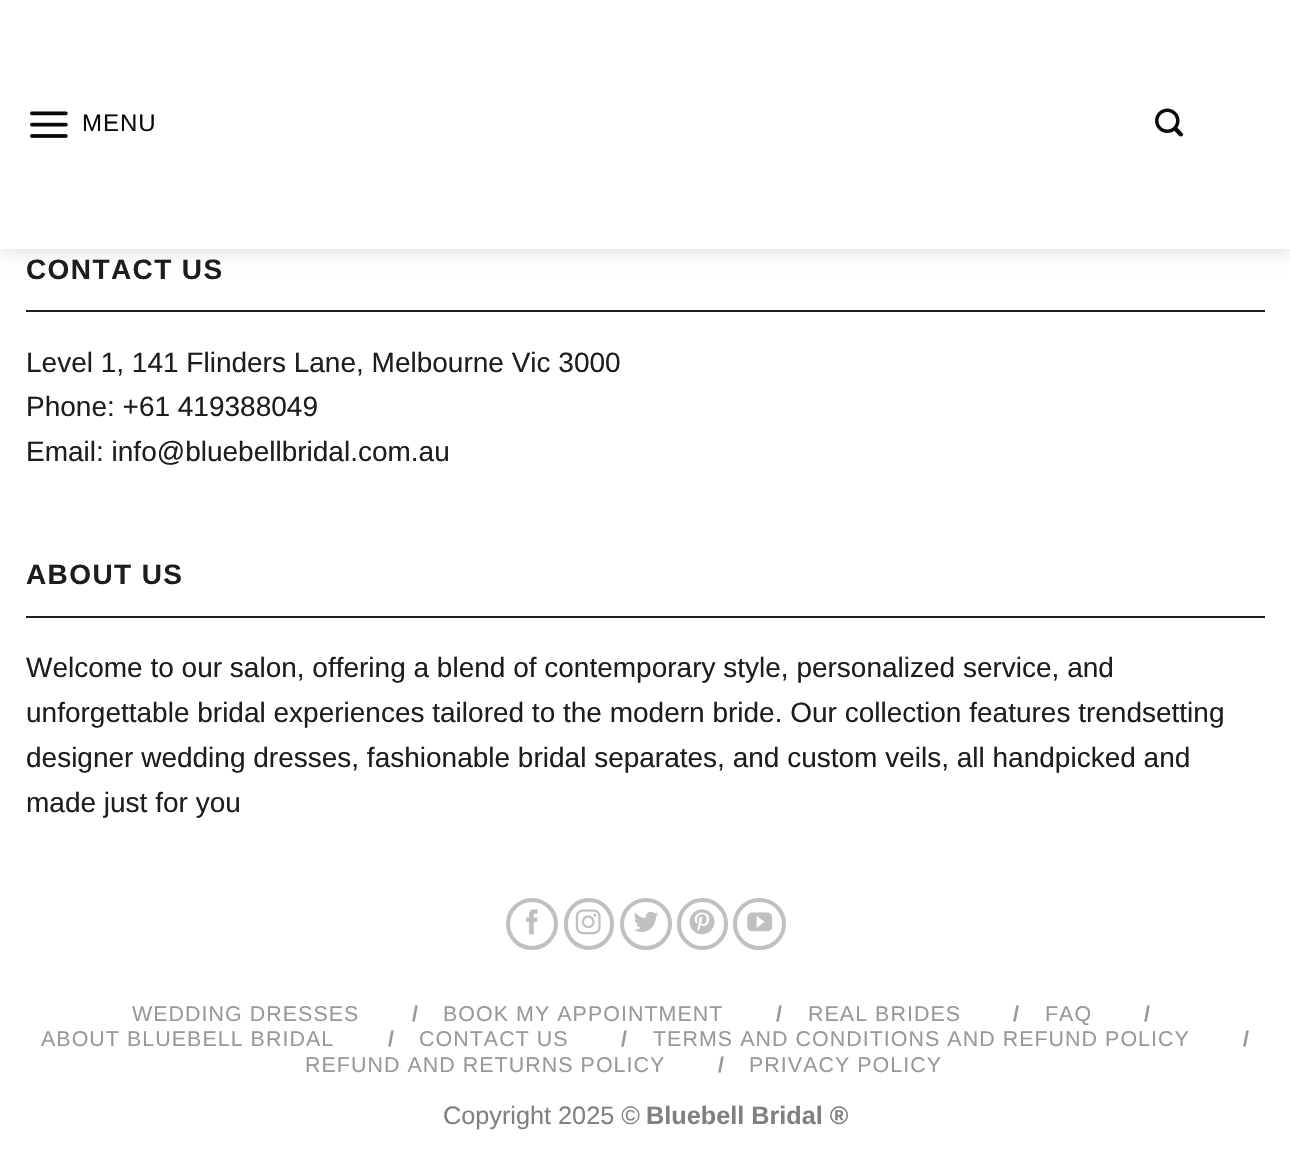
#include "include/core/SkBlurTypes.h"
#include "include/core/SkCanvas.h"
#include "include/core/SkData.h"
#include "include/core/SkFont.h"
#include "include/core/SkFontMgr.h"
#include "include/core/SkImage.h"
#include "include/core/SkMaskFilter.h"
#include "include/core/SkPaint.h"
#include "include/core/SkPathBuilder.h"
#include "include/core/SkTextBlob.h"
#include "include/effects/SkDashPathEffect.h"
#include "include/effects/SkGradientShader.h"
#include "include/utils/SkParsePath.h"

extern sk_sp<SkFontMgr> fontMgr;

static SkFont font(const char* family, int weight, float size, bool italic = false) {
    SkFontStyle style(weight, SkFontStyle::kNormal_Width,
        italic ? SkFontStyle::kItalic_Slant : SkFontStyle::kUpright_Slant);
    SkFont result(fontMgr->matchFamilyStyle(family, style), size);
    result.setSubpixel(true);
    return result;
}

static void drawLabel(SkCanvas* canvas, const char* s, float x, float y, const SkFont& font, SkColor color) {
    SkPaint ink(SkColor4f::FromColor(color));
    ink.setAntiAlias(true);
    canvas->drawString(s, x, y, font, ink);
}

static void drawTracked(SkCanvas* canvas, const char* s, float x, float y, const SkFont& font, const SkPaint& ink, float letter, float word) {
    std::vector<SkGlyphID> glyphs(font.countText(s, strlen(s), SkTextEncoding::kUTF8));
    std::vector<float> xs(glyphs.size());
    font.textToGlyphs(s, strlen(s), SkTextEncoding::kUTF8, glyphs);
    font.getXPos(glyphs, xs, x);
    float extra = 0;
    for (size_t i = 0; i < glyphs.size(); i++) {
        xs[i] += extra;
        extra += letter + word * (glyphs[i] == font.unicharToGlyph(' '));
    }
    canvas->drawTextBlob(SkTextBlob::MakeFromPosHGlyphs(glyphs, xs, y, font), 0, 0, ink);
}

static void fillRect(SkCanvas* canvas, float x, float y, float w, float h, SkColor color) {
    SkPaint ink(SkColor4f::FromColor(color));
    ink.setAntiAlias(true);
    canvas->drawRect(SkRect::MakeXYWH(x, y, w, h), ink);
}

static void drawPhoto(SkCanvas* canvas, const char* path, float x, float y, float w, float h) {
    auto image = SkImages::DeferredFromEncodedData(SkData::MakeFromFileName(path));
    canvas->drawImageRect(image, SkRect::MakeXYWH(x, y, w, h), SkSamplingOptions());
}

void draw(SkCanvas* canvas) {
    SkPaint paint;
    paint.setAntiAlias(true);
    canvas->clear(0xFFFFFFFF);
    paint.setColor(0x26000000);
    paint.setMaskFilter(SkMaskFilter::MakeBlur(kNormal_SkBlurStyle, 9));
    canvas->drawRect(SkRect::MakeXYWH(2, 2, 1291, 248), paint);
    paint.setMaskFilter(nullptr);
    fillRect(canvas, 0, 0, 1290, 249, 0xFFFFFFFF);
    drawPhoto(canvas, "assets/img1.png", 30, 111, 38, 27);
    SkFont font1 = font("Liberation Sans", 400, 24);
    paint.setColor(0xFF0A0A0A);
    drawTracked(canvas, "MENU", 82, 131, font1, paint, 1, 0);
    drawPhoto(canvas, "assets/img2.png", 1155, 108, 28, 29);
    SkFont font2 = font("Liberation Sans", 700, 28);
    paint.setColor(0xFF1D1D1D);
    drawTracked(canvas, "CONTACT US", 26, 279, font2, paint, 1.4f, 0);
    fillRect(canvas, 26, 310, 1239, 2, 0xFF1D1D1D);
    SkFont font3 = font("Liberation Sans", 400, 28);
    drawLabel(canvas, "Level 1, 141 Flinders Lane, Melbourne Vic 3000", 26, 372, font3, 0xFF1D1D1D);
    drawLabel(canvas, "Phone: +61 419388049", 26, 416, font3, 0xFF1D1D1D);
    drawLabel(canvas, "Email: info@bluebellbridal.com.au", 26, 461, font3, 0xFF1D1D1D);
    drawTracked(canvas, "ABOUT US", 26, 584, font2, paint, 1.4f, 0);
    fillRect(canvas, 26, 616, 1239, 2, 0xFF1D1D1D);
    drawLabel(canvas, "Welcome to our salon, offering a blend of contemporary style, personalized service, and", 26, 677, font3, 0xFF1D1D1D);
    drawLabel(canvas, "unforgettable bridal experiences tailored to the modern bride. Our collection features trendsetting", 26, 722, font3, 0xFF1D1D1D);
    drawLabel(canvas, "designer wedding dresses, fashionable bridal separates, and custom veils, all handpicked and", 26, 767, font3, 0xFF1D1D1D);
    drawLabel(canvas, "made just for you", 26, 812, font3, 0xFF1D1D1D);
    paint.setStroke(true);
    paint.setStrokeWidth(4);
    paint.setColor(0xFFC0C0C0);
    canvas->drawCircle(532, 924, 24, paint);
    drawPhoto(canvas, "assets/img3.png", 526, 909, 12, 26);
    canvas->drawRoundRect(SkRect::MakeXYWH(566, 900, 46, 48), 23, 23, paint);
    drawPhoto(canvas, "assets/img4.png", 575, 909, 26, 26);
    canvas->drawCircle(646, 924, 24, paint);
    drawPhoto(canvas, "assets/img5.png", 634, 911, 25, 21);
    canvas->drawRoundRect(SkRect::MakeXYWH(679, 900, 47, 48), 23.5f, 23.5f, paint);
    drawPhoto(canvas, "assets/img6.png", 689, 909, 26, 26);
    canvas->drawRoundRect(SkRect::MakeXYWH(735, 900, 49, 48), 24, 24, paint);
    drawPhoto(canvas, "assets/img7.png", 747, 912, 26, 20);
    SkFont font4 = font("Liberation Sans", 400, 21.4f);
    paint.setStroke(false);
    paint.setColor(0xFF999999);
    drawTracked(canvas, "WEDDING DRESSES", 132, 1021, font4, paint, 1.05f, 0);
    SkFont font5 = font("Liberation Sans", 700, 21.4f);
    drawTracked(canvas, "/", 412, 1021, font5, paint, 1.05f, 0);
    drawTracked(canvas, "BOOK MY APPOINTMENT", 443, 1021, font4, paint, 1.05f, 0);
    drawTracked(canvas, "/", 776, 1021, font5, paint, 1.05f, 0);
    drawTracked(canvas, "REAL BRIDES", 808, 1021, font4, paint, 1.05f, 0);
    drawTracked(canvas, "/", 1013, 1021, font5, paint, 1.05f, 0);
    drawTracked(canvas, "FAQ", 1045, 1021, font4, paint, 1.05f, 0);
    drawTracked(canvas, "/", 1144, 1021, font5, paint, 1.05f, 0);
    drawTracked(canvas, "ABOUT BLUEBELL BRIDAL", 41, 1046, font4, paint, 1.05f, 0);
    drawTracked(canvas, "/", 388, 1046, font5, paint, 1.05f, 0);
    drawTracked(canvas, "CONTACT US", 419, 1046, font4, paint, 1.05f, 0);
    drawTracked(canvas, "/", 621, 1046, font5, paint, 1.05f, 0);
    drawTracked(canvas, "TERMS AND CONDITIONS AND REFUND POLICY", 653, 1046, font4, paint, 1.05f, 0);
    drawTracked(canvas, "/", 1243, 1046, font5, paint, 1.05f, 0);
    drawTracked(canvas, "REFUND AND RETURNS POLICY", 305, 1072, font4, paint, 1.05f, 0);
    drawTracked(canvas, "/", 718, 1072, font5, paint, 1.05f, 0);
    drawTracked(canvas, "PRIVACY POLICY", 749, 1072, font4, paint, 1.05f, 0);
    SkFont font6 = font("Liberation Sans", 400, 25.25f);
    drawLabel(canvas, "Copyright 2025 ©", 443, 1124, font6, 0xFF808080);
    SkFont font7 = font("Liberation Sans", 700, 25.25f);
    drawLabel(canvas, "Bluebell Bridal ®", 646, 1124, font7, 0xFF808080);
}
